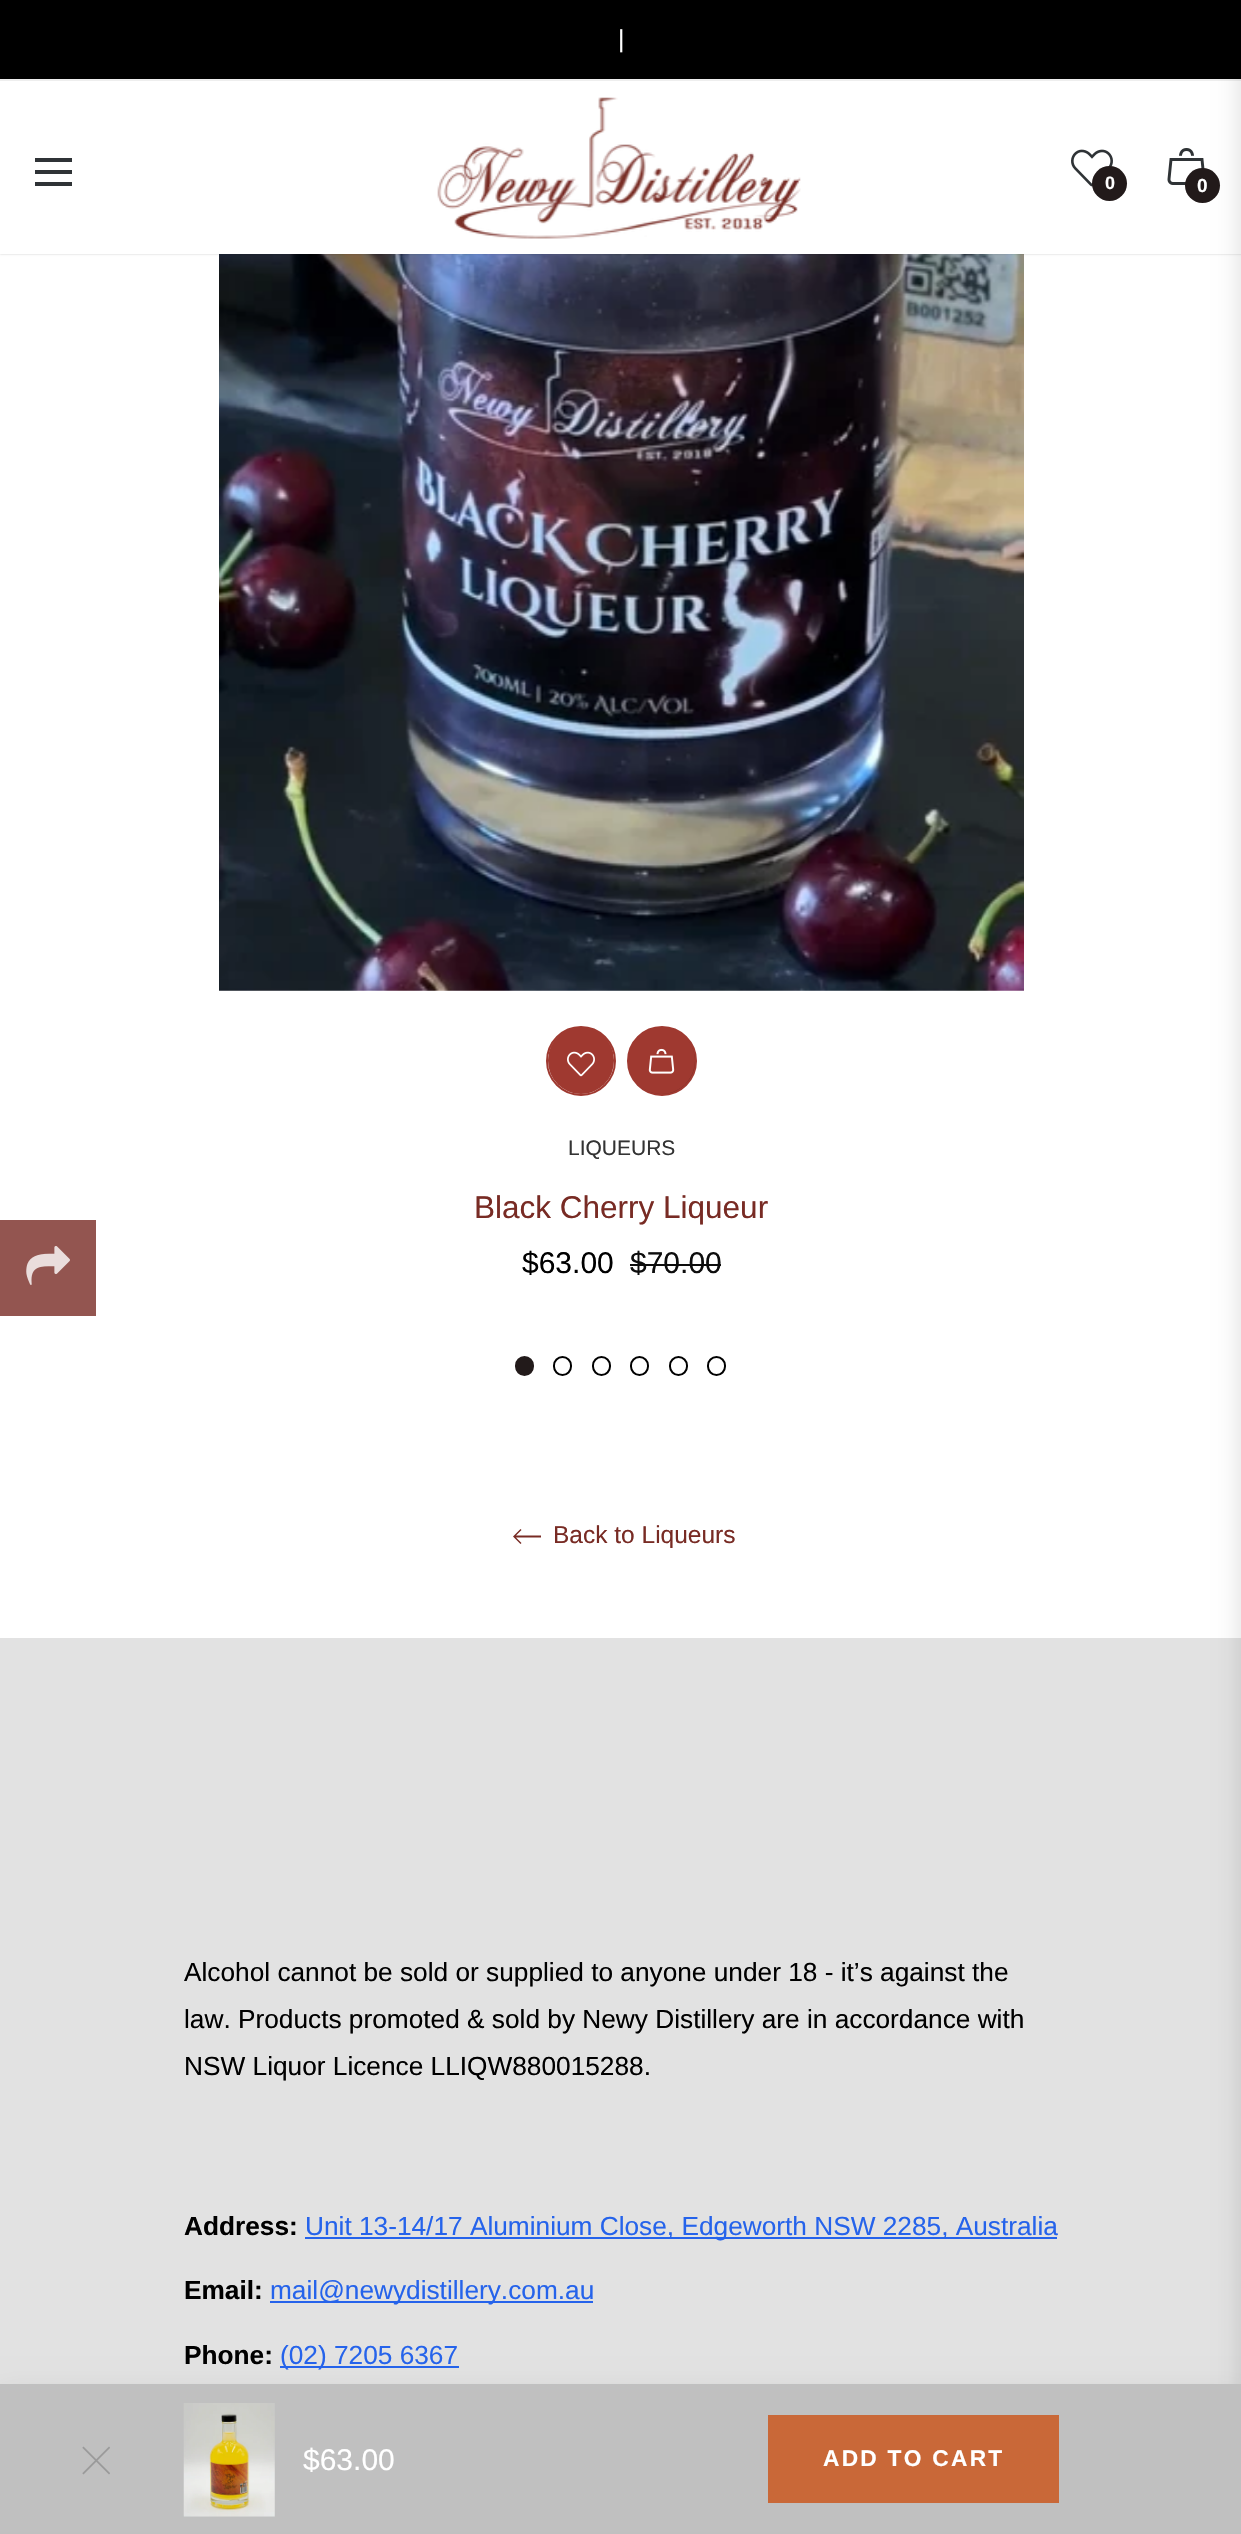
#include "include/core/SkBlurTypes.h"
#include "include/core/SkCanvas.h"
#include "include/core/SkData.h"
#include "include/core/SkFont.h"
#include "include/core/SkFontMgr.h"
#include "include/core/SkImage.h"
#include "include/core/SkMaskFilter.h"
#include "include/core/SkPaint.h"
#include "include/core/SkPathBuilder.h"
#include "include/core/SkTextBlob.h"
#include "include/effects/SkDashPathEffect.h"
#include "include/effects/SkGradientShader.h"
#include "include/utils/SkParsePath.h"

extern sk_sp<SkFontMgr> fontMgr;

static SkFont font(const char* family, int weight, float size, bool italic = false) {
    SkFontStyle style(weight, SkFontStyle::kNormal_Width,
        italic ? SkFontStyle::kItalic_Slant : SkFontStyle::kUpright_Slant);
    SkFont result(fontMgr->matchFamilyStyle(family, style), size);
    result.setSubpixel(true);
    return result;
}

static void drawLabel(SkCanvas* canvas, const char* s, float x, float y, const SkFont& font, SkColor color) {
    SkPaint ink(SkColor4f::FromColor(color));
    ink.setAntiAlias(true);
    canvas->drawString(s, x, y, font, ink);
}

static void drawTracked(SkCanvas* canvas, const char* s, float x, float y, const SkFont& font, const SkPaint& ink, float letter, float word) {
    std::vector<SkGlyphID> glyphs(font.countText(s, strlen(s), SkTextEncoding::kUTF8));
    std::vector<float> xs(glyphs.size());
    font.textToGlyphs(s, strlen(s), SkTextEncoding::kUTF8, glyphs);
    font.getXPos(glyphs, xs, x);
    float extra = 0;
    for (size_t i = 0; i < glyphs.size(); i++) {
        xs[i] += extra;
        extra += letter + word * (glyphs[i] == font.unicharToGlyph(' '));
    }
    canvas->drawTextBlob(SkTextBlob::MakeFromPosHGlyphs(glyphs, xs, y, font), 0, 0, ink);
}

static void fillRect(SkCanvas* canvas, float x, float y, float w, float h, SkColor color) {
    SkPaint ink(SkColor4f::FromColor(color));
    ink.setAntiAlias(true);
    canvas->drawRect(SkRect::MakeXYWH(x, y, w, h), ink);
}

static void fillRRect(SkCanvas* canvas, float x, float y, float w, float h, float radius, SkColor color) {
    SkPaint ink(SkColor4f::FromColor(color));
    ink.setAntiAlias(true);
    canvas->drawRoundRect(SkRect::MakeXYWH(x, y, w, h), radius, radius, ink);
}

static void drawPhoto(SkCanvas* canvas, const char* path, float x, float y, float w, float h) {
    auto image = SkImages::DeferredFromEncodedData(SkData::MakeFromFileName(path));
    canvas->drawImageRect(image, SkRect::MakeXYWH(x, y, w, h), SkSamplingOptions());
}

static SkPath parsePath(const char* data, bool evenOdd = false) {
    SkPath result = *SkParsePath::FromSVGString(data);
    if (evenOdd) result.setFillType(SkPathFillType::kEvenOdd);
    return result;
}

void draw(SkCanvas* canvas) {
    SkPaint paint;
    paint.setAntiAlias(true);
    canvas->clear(0xFFFFFFFF);
    drawPhoto(canvas, "assets/img5.png", 219, 254, 805, 737);
    paint.setColor(0x33000000);
    paint.setMaskFilter(SkMaskFilter::MakeBlur(kNormal_SkBlurStyle, 1));
    canvas->drawRect(SkRect::MakeXYWH(0, 0, 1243, 254), paint);
    paint.setMaskFilter(nullptr);
    fillRect(canvas, 0, 81, 1241, 173, 0xFFFFFFFF);
    fillRect(canvas, 0, 0, 1241, 79, 0xFF000000);
    fillRect(canvas, 0, 79, 1241, 2, 0xFFEEEEEE);
    SkFont font1 = font("Liberation Sans", 400, 24.5f);
    drawLabel(canvas, "|", 618, 47, font1, 0xFFFFFFFF);
    fillRect(canvas, 35, 158, 37, 4, 0xFF2F3336);
    fillRect(canvas, 35, 170, 37, 4, 0xFF2F3336);
    fillRect(canvas, 35, 182, 37, 4, 0xFF2F3336);
    drawPhoto(canvas, "assets/img1.png", 437, 97, 364, 142);
    drawPhoto(canvas, "assets/img2.png", 1071, 149, 42, 38);
    paint.setColor(0xFF221A1A);
    canvas->drawCircle(1109.5f, 183.5f, 17.5f, paint);
    SkFont font2 = font("Liberation Sans", 700, 18);
    drawLabel(canvas, "0", 1105, 189, font2, 0xFFFFFFFF);
    drawPhoto(canvas, "assets/img3.png", 1167, 148, 38, 37);
    canvas->drawCircle(1202.5f, 185.5f, 17.5f, paint);
    fillRect(canvas, 0, 1638, 1241, 746, 0xFFE2E2E2);
    paint.setColor(0x26000000);
    paint.setMaskFilter(SkMaskFilter::MakeBlur(kNormal_SkBlurStyle, 14));
    canvas->drawRect(SkRect::MakeXYWH(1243, 14, 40, 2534), paint);
    paint.setMaskFilter(nullptr);
    SkFont font3 = font("Liberation Sans", 700, 19);
    drawLabel(canvas, "0", 1197, 192, font3, 0xFFFFFFFF);
    fillRect(canvas, 0, 1220, 96, 96, 0xFF935550);
    drawPhoto(canvas, "assets/img4.png", 26, 1246, 44, 39);
    paint.setStroke(true);
    paint.setStrokeWidth(2);
    paint.setColor(0xFF9F3930);
    canvas->drawCircle(581, 1061, 34, paint);
    fillRRect(canvas, 548, 1027, 66, 67, 33, 0xFF9F3930);
    drawPhoto(canvas, "assets/img6.png", 567, 1051, 28, 26);
    paint.setStroke(false);
    paint.setColor(0xFF782B24);
    canvas->drawCircle(662, 1061, 34, paint);
    paint.setStroke(true);
    paint.setColor(0xFF9F3930);
    canvas->drawCircle(662, 1061, 34, paint);
    paint.setStroke(false);
    canvas->drawCircle(661.5f, 1060.5f, 33.5f, paint);
    drawPhoto(canvas, "assets/img7.png", 648, 1048, 27, 26);
    SkFont font4 = font("Liberation Sans", 400, 21);
    drawLabel(canvas, "LIQUEURS", 568, 1155, font4, 0xFF333333);
    SkFont font5 = font("Liberation Sans", 400, 31.5f);
    drawLabel(canvas, "Black Cherry Liqueur", 474, 1218, font5, 0xFF782B24);
    SkFont font6 = font("Liberation Sans", 400, 30);
    drawLabel(canvas, "$63.00", 522, 1273, font6, 0xFF000000);
    drawLabel(canvas, "$70.00", 630, 1273, font6, 0xFF0D0D0D);
    fillRect(canvas, 630, 1264, 91, 2, 0xFF0D0D0D);
    paint.setColor(0xFF221A1A);
    canvas->drawRoundRect(SkRect::MakeXYWH(516, 1357, 17, 18), 8.5f, 8.5f, paint);
    paint.setStroke(true);
    canvas->drawRoundRect(SkRect::MakeXYWH(516, 1357, 17, 18), 8.5f, 8.5f, paint);
    paint.setColor(0xFF000000);
    canvas->drawRoundRect(SkRect::MakeXYWH(554, 1357, 17, 18), 8.5f, 8.5f, paint);
    canvas->drawRoundRect(SkRect::MakeXYWH(593, 1357, 17, 18), 8.5f, 8.5f, paint);
    canvas->drawRoundRect(SkRect::MakeXYWH(631, 1357, 17, 18), 8.5f, 8.5f, paint);
    canvas->drawRoundRect(SkRect::MakeXYWH(670, 1357, 17, 18), 8.5f, 8.5f, paint);
    canvas->drawRoundRect(SkRect::MakeXYWH(708, 1357, 17, 18), 8.5f, 8.5f, paint);
    fillRect(canvas, 280, 2366, 179, 2, 0xFF2563EB);
    paint.setStroke(false);
    paint.setColor(0x26000000);
    paint.setMaskFilter(SkMaskFilter::MakeBlur(kNormal_SkBlurStyle, 14));
    canvas->drawRect(SkRect::MakeXYWH(0, 2398, 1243, 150), paint);
    paint.setMaskFilter(nullptr);
    fillRect(canvas, 0, 2384, 1241, 150, 0xFFC0C0C0);
    drawPhoto(canvas, "assets/img8.png", 82, 2446, 28, 29);
    drawPhoto(canvas, "assets/img9.png", 183, 2403, 92, 114);
    drawLabel(canvas, "$63.00", 303, 2470, font6, 0xFFFFFFFF);
    paint.setStroke(true);
    paint.setColor(0xFFC96838);
    canvas->drawRect(SkRect::MakeXYWH(769, 2416, 289, 86), paint);
    fillRect(canvas, 770, 2417, 287, 84, 0xFFC96838);
    SkFont font7 = font("Liberation Sans", 700, 22.75f);
    paint.setStroke(false);
    paint.setColor(0xFFFFFFFF);
    drawTracked(canvas, "ADD TO CART", 823, 2466, font7, paint, 2.25f, 0);
    paint.setColor(0xFF782B24);
    canvas->drawPath(parsePath("M541 1535.5H516L521.5 1530L520.5 1529L513 1536.5L520.5 1544L521.5 1543L516 1537.5H541Z"), paint);
    drawLabel(canvas, "Back to Liqueurs", 553, 1543, font1, 0xFF782B24);
    SkFont font8 = font("Liberation Sans", 400, 26.25f);
    drawLabel(canvas, "Alcohol cannot be sold or supplied to anyone under 18 - it’s against the", 184, 1981, font8, 0xFF000000);
    drawLabel(canvas, "law. Products promoted & sold by Newy Distillery are in accordance with", 184, 2028, font8, 0xFF000000);
    drawLabel(canvas, "NSW Liquor Licence LLIQW880015288.", 184, 2075, font8, 0xFF000000);
    SkFont font9 = font("Liberation Sans", 700, 26.25f);
    drawLabel(canvas, "Address:", 184, 2235, font9, 0xFF000000);
    fillRect(canvas, 305, 2237, 752, 2, 0xFF2563EB);
    drawLabel(canvas, "Unit 13-14/17 Aluminium Close, Edgeworth NSW 2285, Australia", 305, 2235, font8, 0xFF2563EB);
    drawLabel(canvas, "Email:", 184, 2299, font9, 0xFF000000);
    fillRect(canvas, 270, 2301, 323, 2, 0xFF2563EB);
    drawLabel(canvas, "mail@newydistillery.com.au", 270, 2299, font8, 0xFF2563EB);
    drawLabel(canvas, "Phone:", 184, 2364, font9, 0xFF000000);
    drawLabel(canvas, "(02) 7205 6367", 280, 2364, font8, 0xFF2563EB);
}
